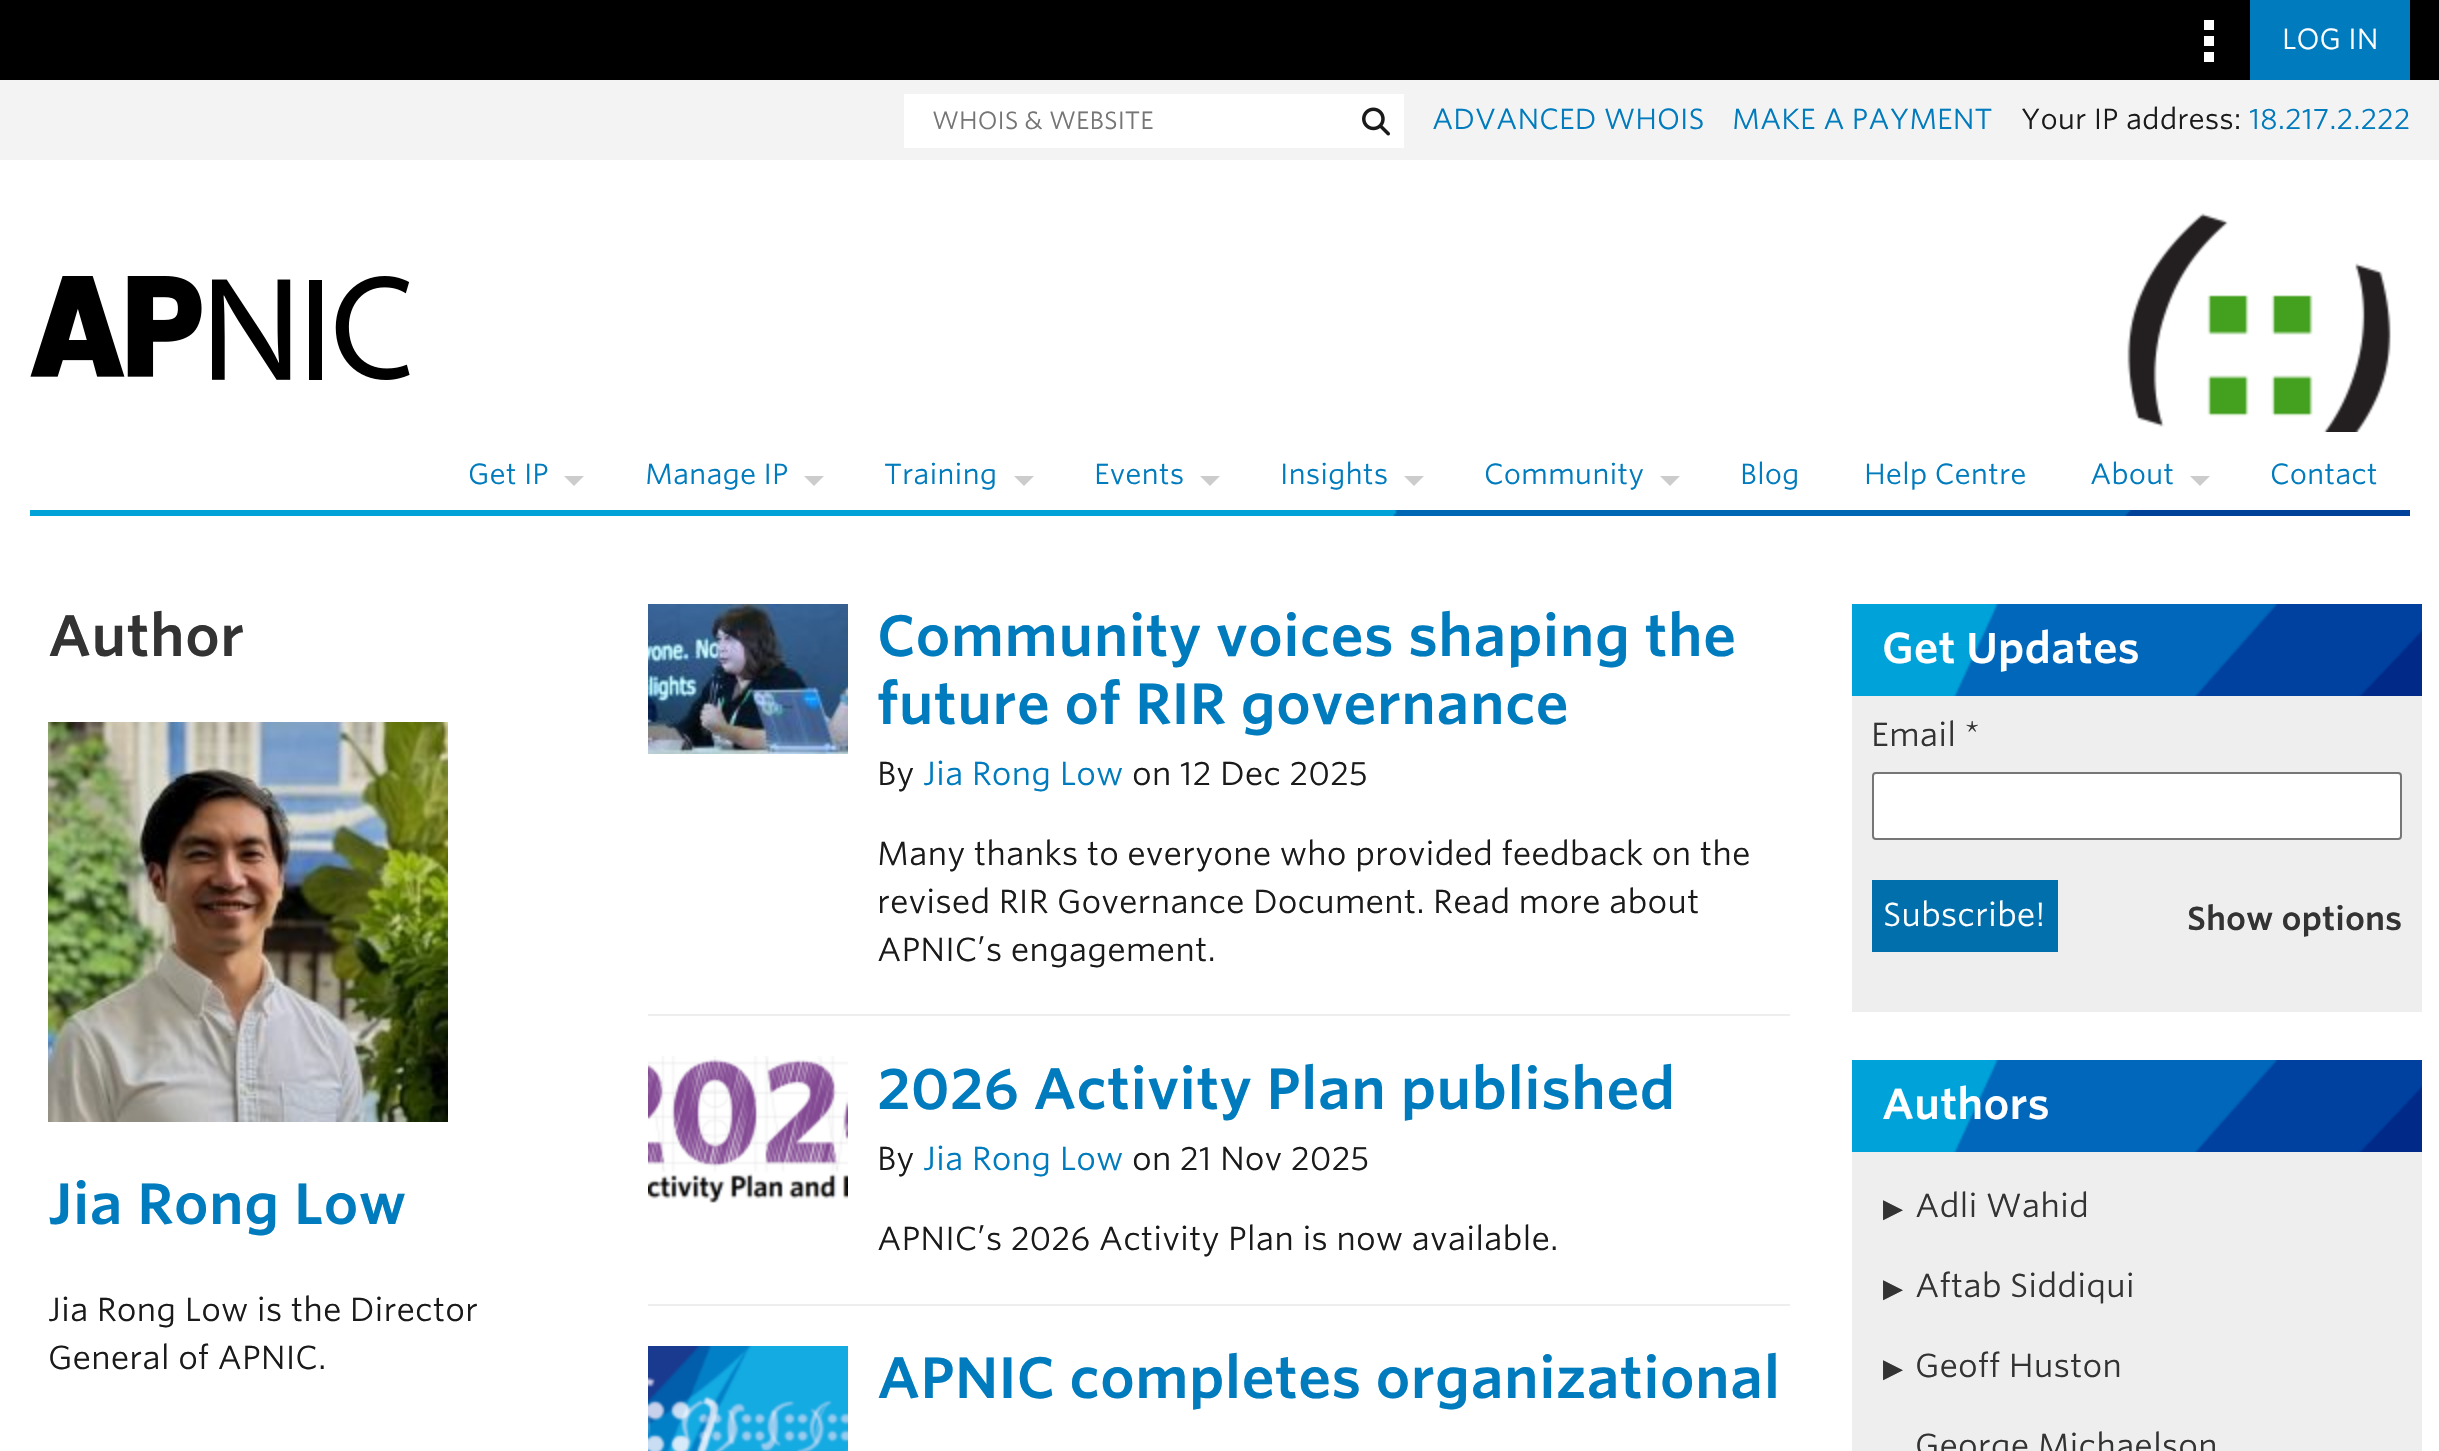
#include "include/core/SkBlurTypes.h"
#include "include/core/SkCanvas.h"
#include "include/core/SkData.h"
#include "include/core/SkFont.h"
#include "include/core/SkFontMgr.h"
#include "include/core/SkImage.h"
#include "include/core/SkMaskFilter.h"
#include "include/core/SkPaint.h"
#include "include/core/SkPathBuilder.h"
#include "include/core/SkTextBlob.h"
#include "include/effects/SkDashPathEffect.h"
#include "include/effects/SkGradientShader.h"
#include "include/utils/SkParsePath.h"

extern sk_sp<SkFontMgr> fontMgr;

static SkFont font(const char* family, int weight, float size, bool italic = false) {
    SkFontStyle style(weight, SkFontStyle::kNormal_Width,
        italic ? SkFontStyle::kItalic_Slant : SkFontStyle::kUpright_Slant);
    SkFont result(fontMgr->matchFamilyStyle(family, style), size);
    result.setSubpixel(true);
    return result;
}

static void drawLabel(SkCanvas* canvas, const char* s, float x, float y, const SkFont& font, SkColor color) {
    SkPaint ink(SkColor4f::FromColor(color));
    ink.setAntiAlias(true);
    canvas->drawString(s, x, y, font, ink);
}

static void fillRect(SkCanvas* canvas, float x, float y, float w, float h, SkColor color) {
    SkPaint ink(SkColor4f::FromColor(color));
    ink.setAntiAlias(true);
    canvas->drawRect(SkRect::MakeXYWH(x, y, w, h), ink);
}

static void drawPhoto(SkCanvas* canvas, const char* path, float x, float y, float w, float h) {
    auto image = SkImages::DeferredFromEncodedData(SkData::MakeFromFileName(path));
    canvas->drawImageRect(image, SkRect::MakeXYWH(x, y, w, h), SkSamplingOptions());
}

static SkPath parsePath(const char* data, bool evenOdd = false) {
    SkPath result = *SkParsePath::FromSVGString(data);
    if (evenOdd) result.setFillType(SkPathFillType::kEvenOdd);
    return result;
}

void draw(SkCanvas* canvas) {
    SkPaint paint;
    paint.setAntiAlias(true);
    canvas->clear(0xFFFFFFFF);
    fillRect(canvas, 0, 0, 2439, 80, 0xFF000000);
    fillRect(canvas, 2204, 20, 10, 10, 0xFFFFFFFF);
    fillRect(canvas, 2204, 36, 10, 10, 0xFFFFFFFF);
    fillRect(canvas, 2204, 52, 10, 10, 0xFFFFFFFF);
    fillRect(canvas, 2250, 0, 160, 80, 0xFF007BBD);
    SkFont font1 = font("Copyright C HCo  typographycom", 300, 28);
    drawLabel(canvas, "LOG IN", 2282, 49, font1, 0xFFFFFFFF);
    fillRect(canvas, 0, 80, 2439, 80, 0xFFF3F3F3);
    fillRect(canvas, 904, 94, 500, 54, 0xFFFFFFFF);
    SkFont font2 = font("Copyright C HCo  typographycom", 300, 24);
    drawLabel(canvas, "WHOIS & WEBSITE", 932, 129, font2, 0xFF757575);
    drawPhoto(canvas, "assets/img1.png", 1362, 107, 28, 29);
    drawLabel(canvas, "ADVANCED WHOIS", 1432, 129, font1, 0xFF007BBD);
    drawLabel(canvas, "MAKE A PAYMENT", 1732, 129, font1, 0xFF007BBD);
    drawLabel(canvas, "Your IP address:", 2021, 129, font1, 0xFF1A1A1A);
    drawLabel(canvas, "18.217.2.222", 2249, 129, font1, 0xFF007BBD);
    drawPhoto(canvas, "assets/img2.png", 30, 276, 380, 104);
    drawPhoto(canvas, "assets/img3.png", 2127, 213, 264, 219);
    drawLabel(canvas, "Get IP", 468, 484, font1, 0xFF007BBD);
    paint.setColor(0xFFCCCCCC);
    canvas->drawPath(parsePath("M564 476H584L574 486Z"), paint);
    drawLabel(canvas, "Manage IP", 645, 484, font1, 0xFF007BBD);
    canvas->drawPath(parsePath("M804 476H824L814 486Z"), paint);
    drawLabel(canvas, "Training", 884, 484, font1, 0xFF007BBD);
    canvas->drawPath(parsePath("M1014 476H1034L1024 486Z"), paint);
    drawLabel(canvas, "Events", 1094, 484, font1, 0xFF007BBD);
    canvas->drawPath(parsePath("M1200 476H1220L1210 486Z"), paint);
    drawLabel(canvas, "Insights", 1280, 484, font1, 0xFF007BBD);
    canvas->drawPath(parsePath("M1404 476H1424L1414 486Z"), paint);
    drawLabel(canvas, "Community", 1484, 484, font1, 0xFF007BBD);
    canvas->drawPath(parsePath("M1660 476H1680L1670 486Z"), paint);
    drawLabel(canvas, "Blog", 1740, 484, font1, 0xFF007BBD);
    drawLabel(canvas, "Help Centre", 1864, 484, font1, 0xFF007BBD);
    drawLabel(canvas, "About", 2090, 484, font1, 0xFF007BBD);
    canvas->drawPath(parsePath("M2190 476H2210L2200 486Z"), paint);
    drawLabel(canvas, "Contact", 2270, 484, font1, 0xFF007BBD);
    drawPhoto(canvas, "assets/img4.png", 30, 510, 2380, 6);
    SkFont font3 = font("Copyright C HCo  typographycom", 400, 56);
    drawLabel(canvas, "Author", 48, 656, font3, 0xFF333333);
    drawPhoto(canvas, "assets/img5.png", 48, 722, 400, 400);
    drawLabel(canvas, "Jia Rong Low", 48, 1224, font3, 0xFF007BBD);
    SkFont font4 = font("Copyright C HCo  typographycom", 300, 32);
    drawLabel(canvas, "Jia Rong Low is the Director", 48, 1321, font4, 0xFF1A1A1A);
    drawLabel(canvas, "General of APNIC.", 48, 1369, font4, 0xFF1A1A1A);
    drawPhoto(canvas, "assets/img6.png", 648, 604, 200, 150);
    drawLabel(canvas, "Community voices shaping the", 877, 656, font3, 0xFF007BBD);
    drawLabel(canvas, "future of RIR governance", 877, 724, font3, 0xFF007BBD);
    drawLabel(canvas, "By", 877, 785, font4, 0xFF1A1A1A);
    drawLabel(canvas, "Jia Rong Low", 923, 785, font4, 0xFF007BBD);
    drawLabel(canvas, "on 12 Dec 2025", 1132, 785, font4, 0xFF1A1A1A);
    drawLabel(canvas, "Many thanks to everyone who provided feedback on the", 877, 865, font4, 0xFF1A1A1A);
    drawLabel(canvas, "revised RIR Governance Document. Read more about", 877, 913, font4, 0xFF1A1A1A);
    drawLabel(canvas, "APNIC’s engagement.", 877, 961, font4, 0xFF1A1A1A);
    fillRect(canvas, 648, 1014, 1142, 2, 0xFFEEEEEE);
    drawPhoto(canvas, "assets/img7.png", 648, 1056, 200, 147);
    drawLabel(canvas, "2026 Activity Plan published", 877, 1109, font3, 0xFF007BBD);
    drawLabel(canvas, "By", 877, 1170, font4, 0xFF1A1A1A);
    drawLabel(canvas, "Jia Rong Low", 923, 1170, font4, 0xFF007BBD);
    drawLabel(canvas, "on 21 Nov 2025", 1132, 1170, font4, 0xFF1A1A1A);
    drawLabel(canvas, "APNIC’s 2026 Activity Plan is now available.", 877, 1250, font4, 0xFF1A1A1A);
    fillRect(canvas, 648, 1304, 1142, 2, 0xFFEEEEEE);
    drawPhoto(canvas, "assets/img8.png", 648, 1346, 200, 105);
    drawLabel(canvas, "APNIC completes organizational", 877, 1398, font3, 0xFF007BBD);
    drawPhoto(canvas, "assets/img9.png", 1852, 604, 570, 92);
    SkFont font5 = font("Copyright C HCo  typographycom", 400, 41.5f);
    drawLabel(canvas, "Get Updates", 1882, 663, font5, 0xFFFFFFFF);
    fillRect(canvas, 1852, 696, 570, 316, 0xFFEEEEEE);
    drawLabel(canvas, "Email *", 1871, 746, font4, 0xFF333333);
    paint.setColor(0xFFFFFFFF);
    canvas->drawRoundRect(SkRect::MakeXYWH(1873, 773, 528, 66), 3, 3, paint);
    paint.setStroke(true);
    paint.setStrokeWidth(2);
    paint.setColor(0xFF767676);
    canvas->drawRoundRect(SkRect::MakeXYWH(1873, 773, 528, 66), 3, 3, paint);
    fillRect(canvas, 1872, 880, 186, 72, 0xFF006FAB);
    drawLabel(canvas, "Subscribe!", 1883, 926, font4, 0xFFFFFFFF);
    SkFont font6 = font("Copyright C HCo  typographycom", 400, 32);
    drawLabel(canvas, "Show options", 2187, 930, font6, 0xFF333333);
    drawPhoto(canvas, "assets/img9.png", 1852, 1060, 570, 92);
    drawLabel(canvas, "Authors", 1882, 1119, font5, 0xFFFFFFFF);
    fillRect(canvas, 1852, 1152, 570, 299, 0xFFEEEEEE);
    SkFont font7 = font("DejaVu Sans", 400, 26);
    drawLabel(canvas, "▶", 1883, 1217, font7, 0xFF333333);
    drawLabel(canvas, "Adli Wahid", 1915, 1217, font4, 0xFF333333);
    drawLabel(canvas, "▶", 1883, 1297, font7, 0xFF333333);
    drawLabel(canvas, "Aftab Siddiqui", 1915, 1297, font4, 0xFF333333);
    drawLabel(canvas, "▶", 1883, 1377, font7, 0xFF333333);
    drawLabel(canvas, "Geoff Huston", 1915, 1377, font4, 0xFF333333);
    drawLabel(canvas, "George Michaelson", 1915, 1457, font4, 0xFF333333);
}
